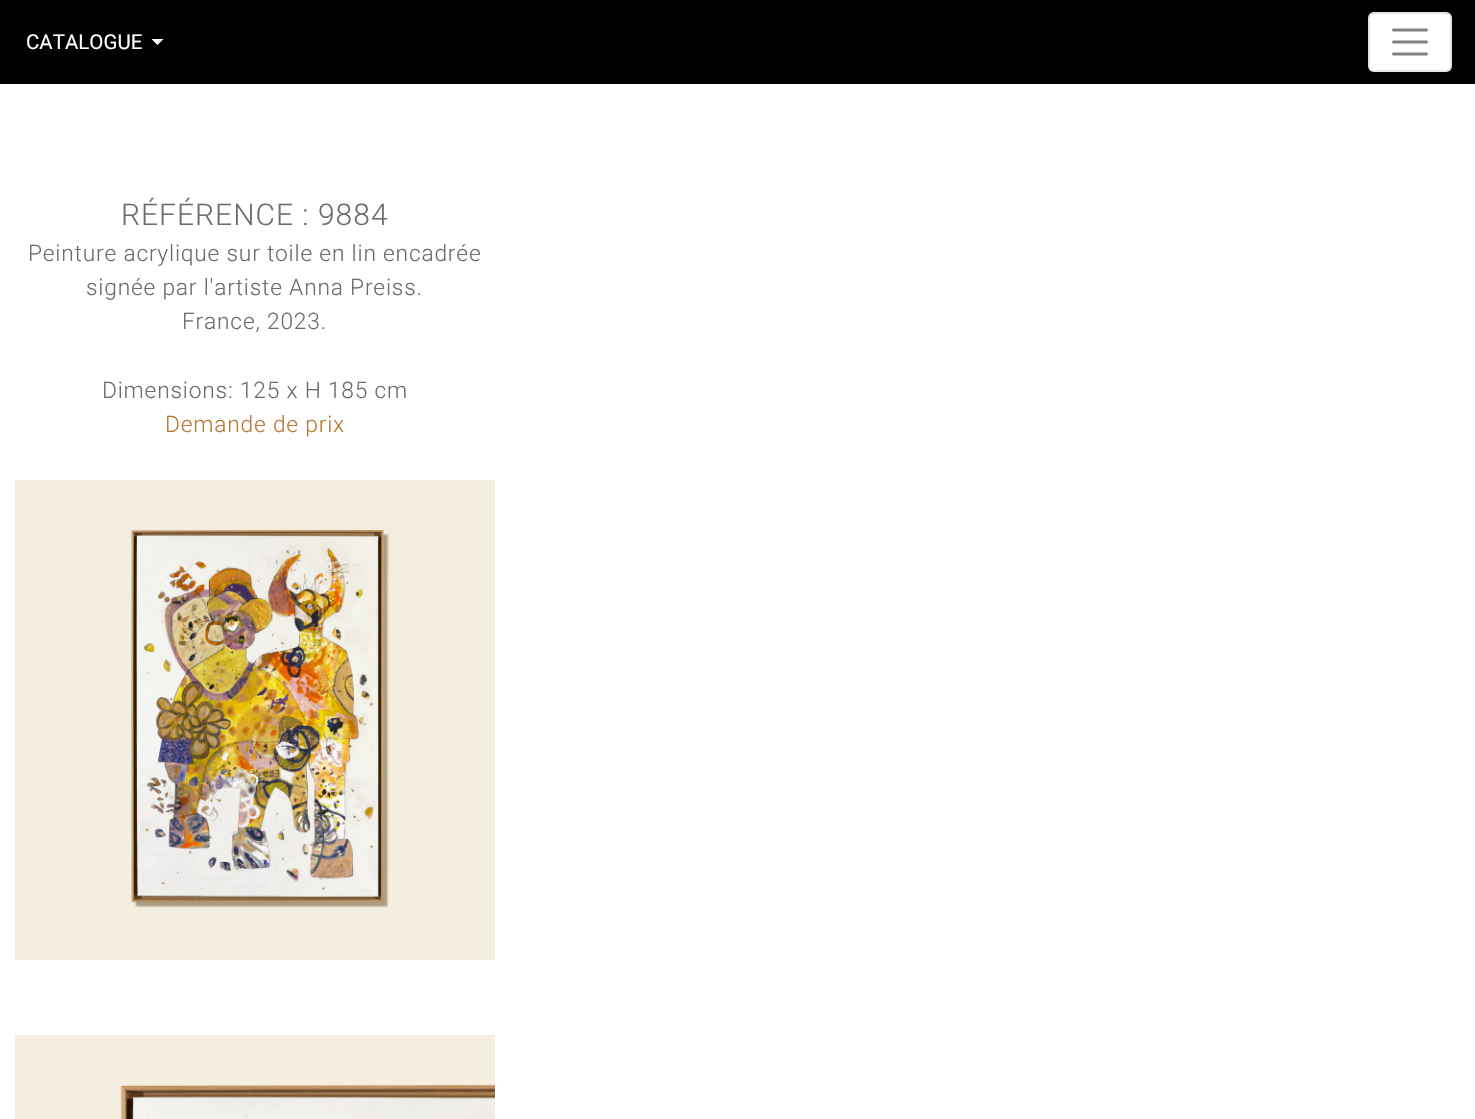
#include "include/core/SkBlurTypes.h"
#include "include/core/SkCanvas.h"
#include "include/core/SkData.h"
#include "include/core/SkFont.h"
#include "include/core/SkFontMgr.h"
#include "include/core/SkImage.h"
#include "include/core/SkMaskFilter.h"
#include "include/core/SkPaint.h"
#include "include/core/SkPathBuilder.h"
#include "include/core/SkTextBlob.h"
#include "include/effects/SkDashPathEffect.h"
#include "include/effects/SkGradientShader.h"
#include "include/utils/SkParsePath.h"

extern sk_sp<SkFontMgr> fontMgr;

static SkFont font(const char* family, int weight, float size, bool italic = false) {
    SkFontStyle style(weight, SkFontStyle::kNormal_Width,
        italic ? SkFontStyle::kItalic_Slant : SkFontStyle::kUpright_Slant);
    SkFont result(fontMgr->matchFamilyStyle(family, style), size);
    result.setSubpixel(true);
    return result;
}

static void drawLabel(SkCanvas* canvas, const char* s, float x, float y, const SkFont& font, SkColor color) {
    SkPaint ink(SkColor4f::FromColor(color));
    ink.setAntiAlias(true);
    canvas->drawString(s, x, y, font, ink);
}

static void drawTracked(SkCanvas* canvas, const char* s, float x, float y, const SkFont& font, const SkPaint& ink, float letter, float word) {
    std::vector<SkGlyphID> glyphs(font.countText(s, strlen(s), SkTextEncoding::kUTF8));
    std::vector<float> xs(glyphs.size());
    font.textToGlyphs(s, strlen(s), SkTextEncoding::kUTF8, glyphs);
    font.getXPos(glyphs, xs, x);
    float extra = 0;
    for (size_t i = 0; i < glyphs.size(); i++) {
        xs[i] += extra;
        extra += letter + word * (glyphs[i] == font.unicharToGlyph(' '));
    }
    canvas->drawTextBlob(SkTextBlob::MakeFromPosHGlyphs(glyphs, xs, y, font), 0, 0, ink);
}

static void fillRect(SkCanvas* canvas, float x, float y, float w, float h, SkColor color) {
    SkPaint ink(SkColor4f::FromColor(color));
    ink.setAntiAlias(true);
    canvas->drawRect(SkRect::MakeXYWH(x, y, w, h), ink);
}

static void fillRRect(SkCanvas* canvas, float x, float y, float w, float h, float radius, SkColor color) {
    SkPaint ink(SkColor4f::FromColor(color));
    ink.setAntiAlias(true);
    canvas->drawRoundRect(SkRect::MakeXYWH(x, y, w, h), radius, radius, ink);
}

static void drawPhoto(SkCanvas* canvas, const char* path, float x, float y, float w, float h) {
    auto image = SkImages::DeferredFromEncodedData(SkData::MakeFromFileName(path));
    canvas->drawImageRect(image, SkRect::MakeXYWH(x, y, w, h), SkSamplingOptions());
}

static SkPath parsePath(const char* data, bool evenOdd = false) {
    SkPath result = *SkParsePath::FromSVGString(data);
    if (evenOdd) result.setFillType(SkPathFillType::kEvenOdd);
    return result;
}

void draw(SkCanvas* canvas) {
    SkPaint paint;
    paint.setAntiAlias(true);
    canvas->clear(0xFFFFFFFF);
    fillRect(canvas, 0, 0, 1475, 84, 0xFF000000);
    SkFont font1 = font("Roboto", 400, 20.5f);
    drawLabel(canvas, "CATALOGUE", 26, 49, font1, 0xFFFFFFFF);
    paint.setColor(0xFFFFFFFF);
    canvas->drawPath(parsePath("M151.5 39H163.5L157.5 45Z"), paint);
    fillRRect(canvas, 1368, 12, 84, 60, 6, 0xFFFFFFFF);
    paint.setStroke(true);
    paint.setStrokeWidth(2);
    paint.setColor(0x1A000000);
    canvas->drawRoundRect(SkRect::MakeXYWH(1369, 13, 82, 58), 5, 5, paint);
    paint.setStrokeWidth(3);
    paint.setStrokeCap(SkPaint::kRound_Cap);
    paint.setColor(0xFF808080);
    canvas->drawPath(parsePath("M1393.5 30H1426.5M1393.5 42H1426.5M1393.5 54H1426.5"), paint);
    SkFont font2 = font("Roboto", 300, 30);
    paint.setStroke(false);
    paint.setColor(0xFF6D6D6D);
    drawTracked(canvas, "RÉFÉRENCE : 9884", 121, 225, font2, paint, 1, 0);
    SkFont font3 = font("Roboto", 300, 22.75f);
    drawTracked(canvas, "Peinture acrylique sur toile en lin encadrée", 28, 261, font3, paint, 0.8f, 0);
    drawTracked(canvas, "signée par l'artiste Anna Preiss.", 86, 295, font3, paint, 0.8f, 0);
    drawTracked(canvas, "France, 2023.", 182, 329, font3, paint, 0.8f, 0);
    drawTracked(canvas, "Dimensions: 125 x H 185 cm", 102, 398, font3, paint, 0.8f, 0);
    paint.setColor(0xFFB67A34);
    drawTracked(canvas, "Demande de prix", 165, 432, font3, paint, 0.8f, 0);
    drawPhoto(canvas, "assets/img1.png", 15, 480, 480, 480);
    drawPhoto(canvas, "assets/img2.png", 15, 1035, 480, 84);
}
